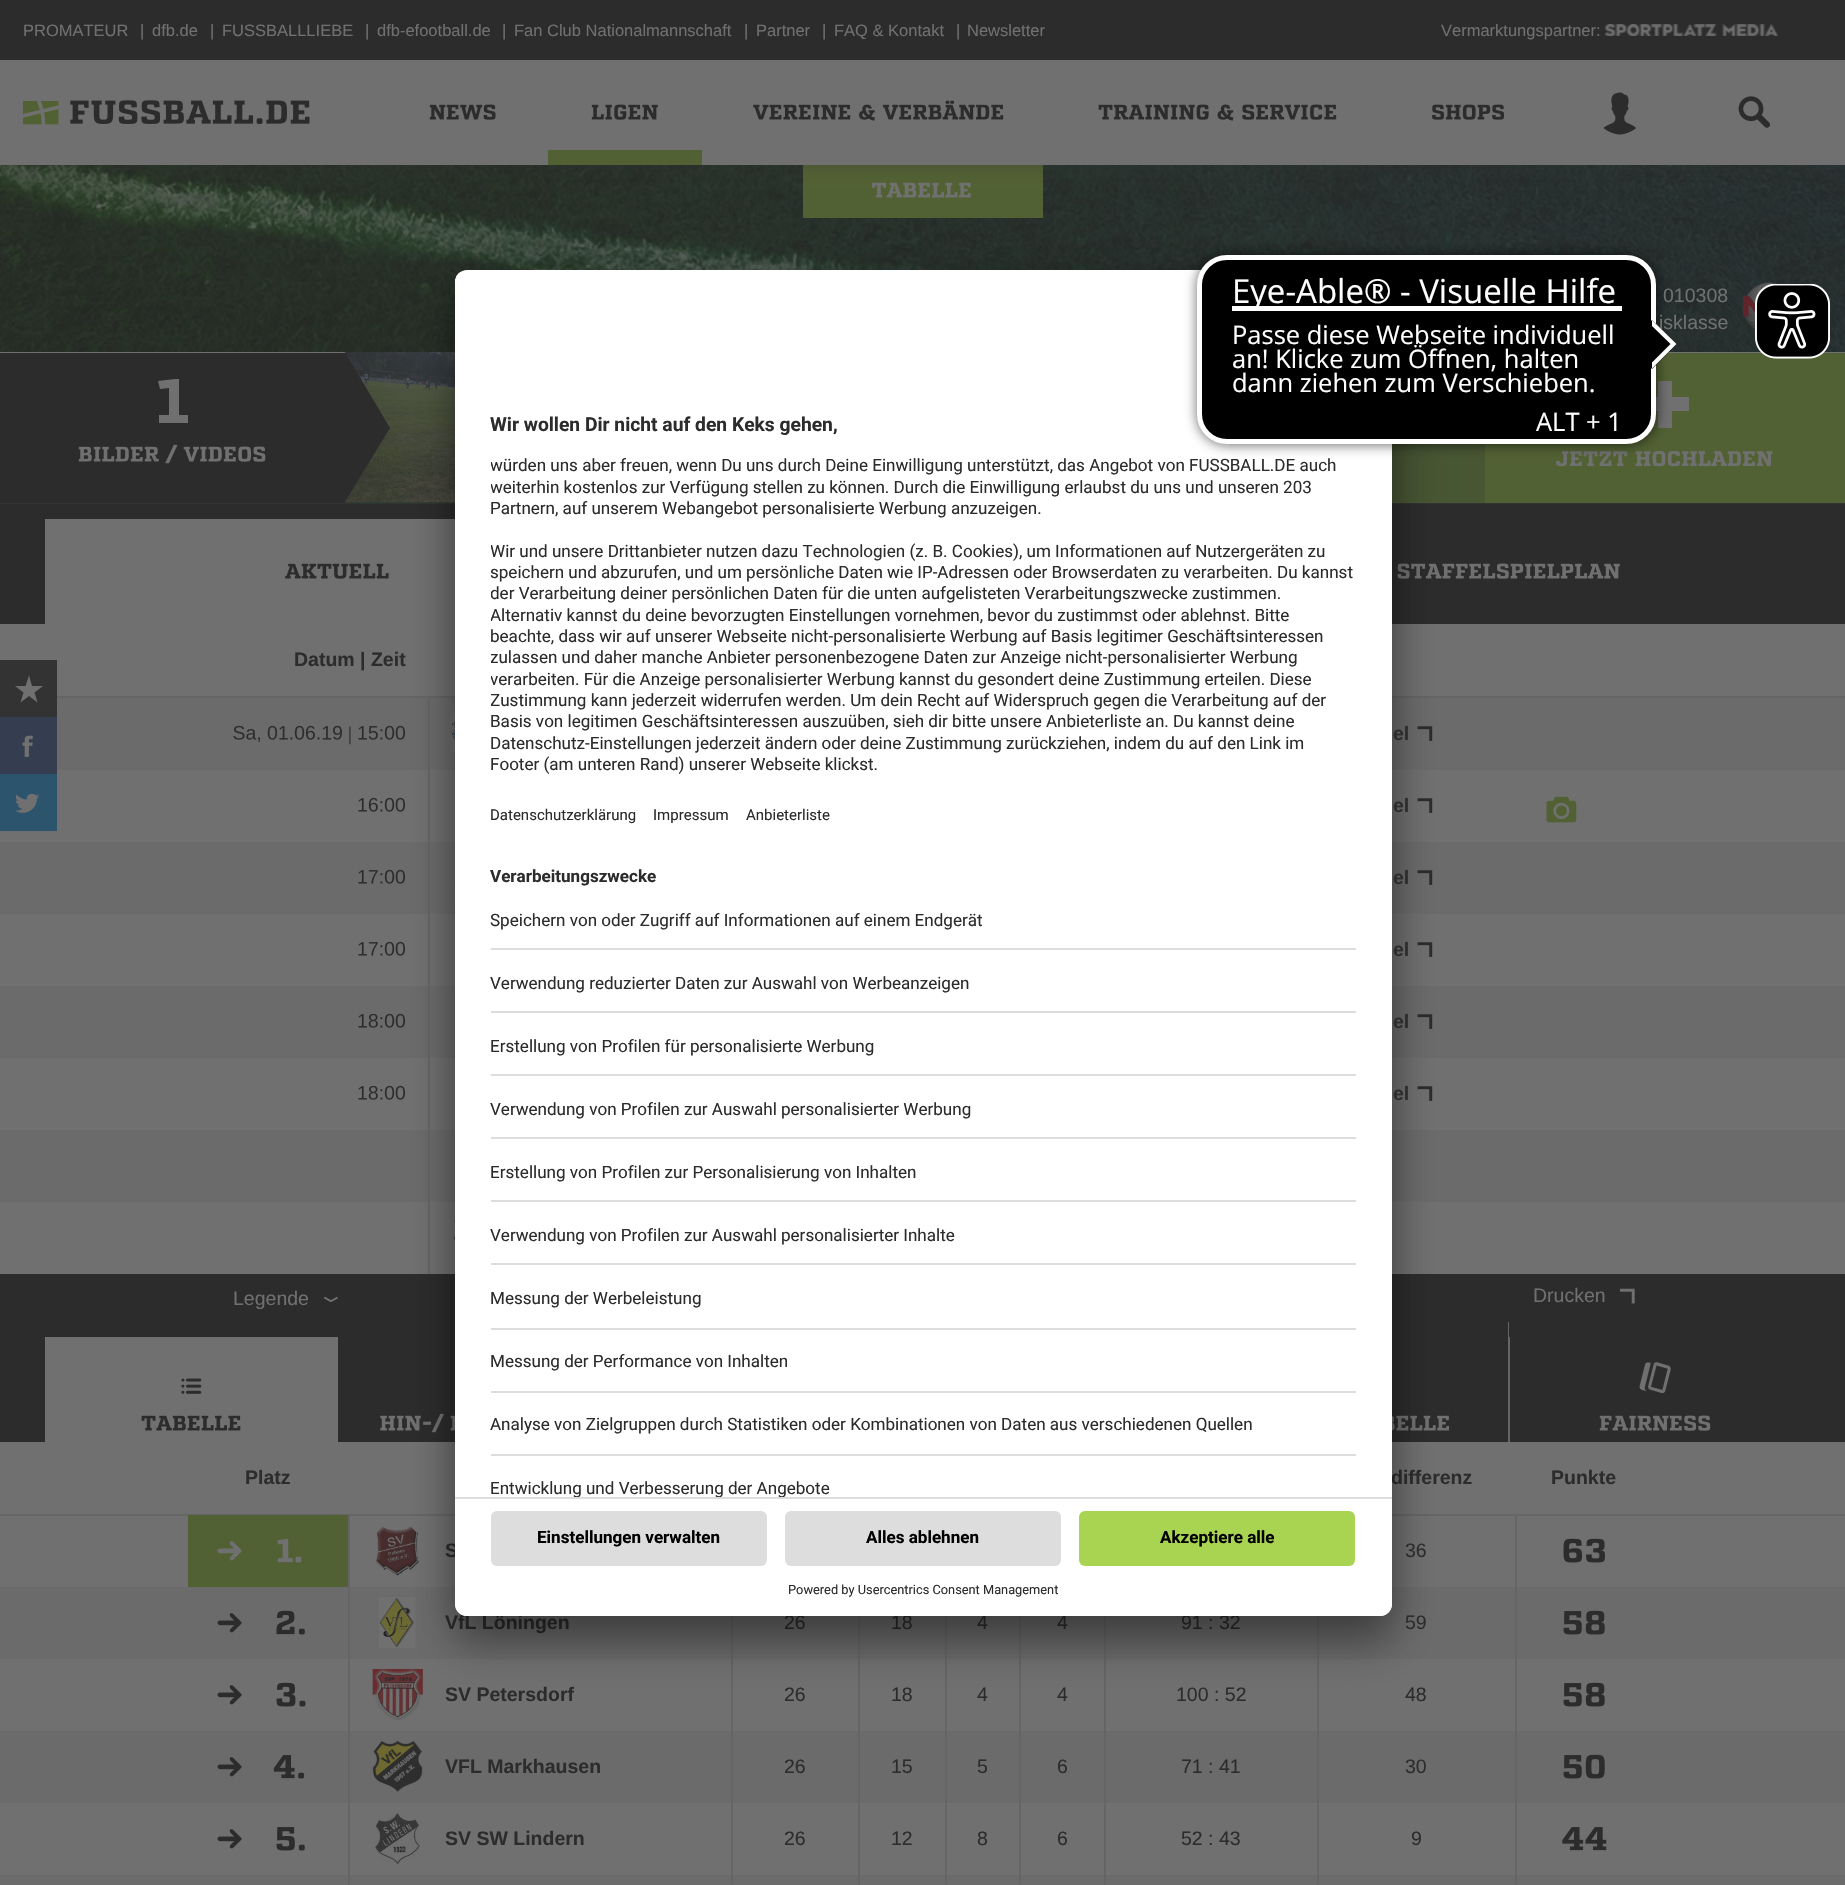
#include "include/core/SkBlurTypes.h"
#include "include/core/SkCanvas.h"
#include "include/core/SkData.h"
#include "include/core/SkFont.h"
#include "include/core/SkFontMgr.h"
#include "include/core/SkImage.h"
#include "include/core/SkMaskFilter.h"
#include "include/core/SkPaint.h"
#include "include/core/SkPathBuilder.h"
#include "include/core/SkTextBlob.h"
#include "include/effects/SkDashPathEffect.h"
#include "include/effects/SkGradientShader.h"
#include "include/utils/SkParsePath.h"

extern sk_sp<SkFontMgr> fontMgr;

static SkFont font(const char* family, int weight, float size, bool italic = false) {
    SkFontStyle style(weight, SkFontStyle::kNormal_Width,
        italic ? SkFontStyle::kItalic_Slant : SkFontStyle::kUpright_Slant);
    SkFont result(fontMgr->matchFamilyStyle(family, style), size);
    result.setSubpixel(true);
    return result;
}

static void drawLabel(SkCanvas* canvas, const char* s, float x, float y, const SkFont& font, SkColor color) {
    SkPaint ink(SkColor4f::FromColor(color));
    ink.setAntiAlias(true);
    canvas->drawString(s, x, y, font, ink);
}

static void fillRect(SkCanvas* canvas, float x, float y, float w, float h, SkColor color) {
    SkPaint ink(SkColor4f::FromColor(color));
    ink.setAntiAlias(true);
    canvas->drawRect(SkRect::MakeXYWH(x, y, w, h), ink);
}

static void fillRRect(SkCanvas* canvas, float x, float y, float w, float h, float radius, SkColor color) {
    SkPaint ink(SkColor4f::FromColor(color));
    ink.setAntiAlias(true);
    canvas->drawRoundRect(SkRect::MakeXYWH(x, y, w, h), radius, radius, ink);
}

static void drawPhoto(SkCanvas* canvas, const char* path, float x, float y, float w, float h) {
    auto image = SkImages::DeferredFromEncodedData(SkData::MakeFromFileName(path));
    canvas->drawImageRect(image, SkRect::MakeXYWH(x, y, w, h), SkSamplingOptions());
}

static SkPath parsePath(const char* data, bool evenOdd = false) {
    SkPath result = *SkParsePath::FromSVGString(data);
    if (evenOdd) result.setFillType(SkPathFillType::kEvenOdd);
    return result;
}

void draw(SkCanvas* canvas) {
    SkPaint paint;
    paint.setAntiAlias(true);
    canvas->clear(0xFF707070);
    drawPhoto(canvas, "assets/img12.png", 0, 165, 1845, 187);
    fillRect(canvas, 803, 165, 240, 53, 0xFF526133);
    drawPhoto(canvas, "assets/img13.png", 872, 182, 99, 16);
    paint.setColor(0x4D333333);
    paint.setMaskFilter(SkMaskFilter::MakeBlur(kNormal_SkBlurStyle, 7.5f));
    canvas->drawRect(SkRect::MakeXYWH(3, 3, 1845, 165), paint);
    paint.setMaskFilter(nullptr);
    fillRect(canvas, 0, 60, 1845, 105, 0xFF707070);
    fillRect(canvas, 0, 0, 1845, 60, 0xFF2C2C2C);
    SkFont font1 = font("Liberation Sans", 400, 16.5f);
    drawLabel(canvas, "PROMATEUR", 23, 36, font1, 0xFF707070);
    drawLabel(canvas, "|", 140, 36, font1, 0xFF707070);
    drawLabel(canvas, "dfb.de", 152, 36, font1, 0xFF707070);
    drawLabel(canvas, "|", 210, 36, font1, 0xFF707070);
    drawLabel(canvas, "FUSSBALLLIEBE", 222, 36, font1, 0xFF707070);
    drawLabel(canvas, "|", 365, 36, font1, 0xFF707070);
    drawLabel(canvas, "dfb-efootball.de", 377, 36, font1, 0xFF707070);
    drawLabel(canvas, "|", 502, 36, font1, 0xFF707070);
    drawLabel(canvas, "Fan Club Nationalmannschaft", 514, 36, font1, 0xFF707070);
    drawLabel(canvas, "|", 744, 36, font1, 0xFF707070);
    drawLabel(canvas, "Partner", 756, 36, font1, 0xFF707070);
    drawLabel(canvas, "|", 822, 36, font1, 0xFF707070);
    drawLabel(canvas, "FAQ & Kontakt", 834, 36, font1, 0xFF707070);
    drawLabel(canvas, "|", 956, 36, font1, 0xFF707070);
    drawLabel(canvas, "Newsletter", 967, 36, font1, 0xFF707070);
    drawLabel(canvas, "Vermarktungspartner:", 1441, 36, font1, 0xFF707070);
    drawPhoto(canvas, "assets/img1.png", 1604, 24, 174, 12);
    drawPhoto(canvas, "assets/img2.png", 23, 101, 36, 24);
    drawPhoto(canvas, "assets/img3.png", 70, 100, 240, 24);
    drawPhoto(canvas, "assets/img4.png", 429, 104, 67, 16);
    fillRect(canvas, 548, 150, 154, 15, 0xFF526133);
    drawPhoto(canvas, "assets/img5.png", 591, 104, 67, 16);
    drawPhoto(canvas, "assets/img6.png", 753, 100, 251, 21);
    drawPhoto(canvas, "assets/img7.png", 1098, 104, 239, 17);
    drawPhoto(canvas, "assets/img8.png", 1432, 104, 73, 16);
    drawPhoto(canvas, "assets/img9.png", 1603, 92, 33, 43);
    drawPhoto(canvas, "assets/img10.png", 1738, 96, 33, 32);
    {
        const SkColor colors[] = {0xFF243533, 0xFF526133};
        const float stops[] = {0, 1};
        const SkPoint ends[] = {{0, 428}, {1845, 427}};
        paint.setShader(SkGradientShader::MakeLinear(ends, colors, stops, 2, SkTileMode::kClamp));
        paint.setAlpha(255);
    }
    canvas->drawRect(SkRect::MakeXYWH(345, 444, 1140, 59), paint);
    drawPhoto(canvas, "assets/img16.png", 1392, 444, 93, 58);
    fillRect(canvas, 1485, 353, 360, 150, 0xFF526133);
    paint.setShader(nullptr);
    paint.setColor(0xFF707070);
    canvas->drawPath(parsePath("M1672 411V428H1658V411H1642V397H1658V381H1672V397H1689V411Z"), paint);
    drawPhoto(canvas, "assets/img18.png", 1556, 451, 217, 16);
    fillRect(canvas, 0, 503, 1845, 1, 0xFF333333);
    fillRect(canvas, 0, 504, 1845, 120, 0xFF2C2C2C);
    fillRect(canvas, 57, 696, 1788, 2, 0xFF656565);
    fillRect(canvas, 57, 698, 1788, 72, 0xFF6B6B6B);
    fillRect(canvas, 0, 842, 1845, 72, 0xFF6B6B6B);
    fillRect(canvas, 0, 986, 1845, 72, 0xFF6B6B6B);
    fillRect(canvas, 0, 1130, 1845, 72, 0xFF6B6B6B);
    fillRect(canvas, 0, 1274, 1845, 168, 0xFF2C2C2C);
    SkFont font2 = font("Liberation Sans", 700, 19.5f);
    drawLabel(canvas, "differenz", 1391, 1484, font2, 0xFF2C2C2C);
    fillRect(canvas, 0, 1514, 1845, 2, 0xFF656565);
    drawLabel(canvas, "S", 445, 1557, font2, 0xFF2C2C2C);
    fillRect(canvas, 0, 1587, 1845, 72, 0xFF6B6B6B);
    drawLabel(canvas, "VfL Löningen", 445, 1629, font2, 0xFF2C2C2C);
    SkFont font3 = font("Liberation Sans", 400, 19.5f);
    drawLabel(canvas, "26", 784, 1629, font3, 0xFF2C2C2C);
    drawLabel(canvas, "18", 891, 1629, font3, 0xFF2C2C2C);
    drawLabel(canvas, "4", 977, 1629, font3, 0xFF2C2C2C);
    drawLabel(canvas, "4", 1057, 1629, font3, 0xFF2C2C2C);
    drawLabel(canvas, "91 : 32", 1181, 1629, font3, 0xFF2C2C2C);
    drawPhoto(canvas, "assets/img17.png", 345, 352, 110, 150);
    fillRect(canvas, 45, 519, 410, 105, 0xFF707070);
    drawPhoto(canvas, "assets/img20.png", 1397, 563, 223, 16);
    drawPhoto(canvas, "assets/img23.png", 358, 725, 47, 15);
    fillRect(canvas, 428, 698, 2, 576, 0xFF656565);
    drawPhoto(canvas, "assets/img24.png", 451, 713, 4, 39);
    drawPhoto(canvas, "assets/img25.png", 1417, 726, 16, 15);
    drawPhoto(canvas, "assets/img26.png", 358, 797, 47, 15);
    drawPhoto(canvas, "assets/img27.png", 1417, 798, 16, 15);
    drawPhoto(canvas, "assets/img29.png", 358, 869, 47, 15);
    drawPhoto(canvas, "assets/img30.png", 454, 851, 1, 52);
    drawPhoto(canvas, "assets/img25.png", 1417, 870, 16, 15);
    drawPhoto(canvas, "assets/img31.png", 454, 934, 1, 2);
    drawPhoto(canvas, "assets/img32.png", 358, 941, 47, 15);
    drawPhoto(canvas, "assets/img27.png", 1417, 942, 16, 15);
    drawPhoto(canvas, "assets/img33.png", 358, 1013, 47, 15);
    drawPhoto(canvas, "assets/img25.png", 1417, 1014, 16, 15);
    drawPhoto(canvas, "assets/img34.png", 358, 1085, 47, 15);
    drawPhoto(canvas, "assets/img27.png", 1417, 1086, 16, 15);
    drawPhoto(canvas, "assets/img35.png", 453, 1218, 2, 24);
    drawPhoto(canvas, "assets/img40.png", 380, 1413, 75, 20);
    drawPhoto(canvas, "assets/img41.png", 1392, 1415, 58, 16);
    drawPhoto(canvas, "assets/img47.png", 375, 1526, 44, 50);
    drawPhoto(canvas, "assets/img50.png", 379, 1597, 37, 51);
    fillRect(canvas, 0, 1731, 1845, 72, 0xFF6B6B6B);
    fillRect(canvas, 0, 1875, 1845, 10, 0xFF6B6B6B);
    fillRect(canvas, 731, 1616, 2, 269, 0xFF656565);
    fillRect(canvas, 858, 1616, 2, 269, 0xFF656565);
    fillRect(canvas, 945, 1616, 2, 269, 0xFF656565);
    fillRect(canvas, 1019, 1616, 2, 269, 0xFF656565);
    fillRect(canvas, 1104, 1616, 2, 269, 0xFF656565);
    fillRect(canvas, 1317, 1616, 2, 269, 0xFF656565);
    drawPhoto(canvas, "assets/img54.png", 372, 1669, 51, 51);
    paint.setColor(0x4D000000);
    paint.setMaskFilter(SkMaskFilter::MakeBlur(kNormal_SkBlurStyle, 21));
    canvas->drawRoundRect(SkRect::MakeXYWH(455, 300, 937, 1346), 12, 12, paint);
    paint.setMaskFilter(nullptr);
    paint.setColor(0x38000000);
    paint.setMaskFilter(SkMaskFilter::MakeBlur(kNormal_SkBlurStyle, 19.5f));
    canvas->drawRoundRect(SkRect::MakeXYWH(455, 278, 937, 1345), 12, 12, paint);
    paint.setMaskFilter(nullptr);
    fillRRect(canvas, 455, 270, 937, 1346, 12, 0xFFFFFFFF);
    canvas->save();
    canvas->clipPath(parsePath("M467 270H1380C1386.5 270 1392 275.5 1392 282V1604C1392 1610.5 1386.5 1616 1380 1616H467C460.5 1616 455 1610.5 455 1604V282C455 275.5 460.5 270 467 270Z"), true);
    canvas->clipPath(parsePath("M467 270H1380C1386.5 270 1392 275.5 1392 282V1497H455V282C455 275.5 460.5 270 467 270Z"), true);
    fillRect(canvas, 455, 272, 937, 1225, 0xFFFFFFFF);
    fillRect(canvas, 455, 272, 937, 577, 0xFFFFFFFF);
    canvas->restore();
    paint.setColor(0x80000000);
    paint.setMaskFilter(SkMaskFilter::MakeBlur(kNormal_SkBlurStyle, 6));
    canvas->drawRoundRect(SkRect::MakeXYWH(1196, 254, 462, 192), 32, 32, paint);
    paint.setMaskFilter(nullptr);
    paint.setColor(0xFF000000);
    canvas->drawRoundRect(SkRect::MakeXYWH(1199.5f, 257.5f, 454, 184), 27.5f, 27.5f, paint);
    paint.setStroke(true);
    paint.setStrokeWidth(5);
    paint.setColor(0xFFFFFFFF);
    canvas->drawRoundRect(SkRect::MakeXYWH(1199.5f, 257.5f, 454, 184), 27.5f, 27.5f, paint);
    fillRect(canvas, 1232, 306, 390, 5, 0xFFFFFFFF);
    SkFont font4 = font("Open Sans", 400, 33);
    drawLabel(canvas, "Eye-Able® - Visuelle Hilfe", 1232, 303, font4, 0xFFFFFFFF);
    SkFont font5 = font("Open Sans", 400, 25.5f);
    drawLabel(canvas, "Passe diese Webseite individuell", 1232, 344, font5, 0xFFFFFFFF);
    drawLabel(canvas, "an! Klicke zum Öffnen, halten", 1232, 368, font5, 0xFFFFFFFF);
    drawLabel(canvas, "dann ziehen zum Verschieben.", 1232, 392, font5, 0xFFFFFFFF);
    drawLabel(canvas, "isklasse", 1659, 329, font3, 0xFF707070);
    paint.setStroke(false);
    paint.setColor(0xFF000000);
    canvas->drawPath(parsePath("M1652 320L1677 344L1652 369L1628 344Z"), paint);
    paint.setColor(0xFFFFFFFF);
    canvas->drawPath(parsePath("M1652 320L1676.5 344H1670.5L1652 326ZM1676.5 344L1652 368.5V362.5L1670.5 344Z"), paint);
    drawLabel(canvas, "ALT + 1", 1536, 431, font5, 0xFFFFFFFF);
    drawPhoto(canvas, "assets/img14.png", 1743, 282, 35, 49);
    drawPhoto(canvas, "assets/img11.png", 1755, 284, 75, 75);
    drawLabel(canvas, "010308", 1663, 302, font3, 0xFF707070);
    fillRect(canvas, 0, 353, 345, 150, 0xFF2C2C2C);
    paint.setColor(0xFF707070);
    canvas->drawPath(parsePath("M188 423H159V415H169V388L160 389L158 381L175 379H179V415H188Z"), paint);
    paint.setColor(0xFF2C2C2C);
    canvas->drawPath(parsePath("M345 502V352L390 428Z"), paint);
    drawPhoto(canvas, "assets/img15.png", 78, 444, 188, 20);
    drawPhoto(canvas, "assets/img19.png", 285, 563, 104, 16);
    drawLabel(canvas, "Datum | Zeit", 294, 666, font2, 0xFF2C2C2C);
    drawPhoto(canvas, "assets/img21.png", 233, 725, 27, 17);
    drawPhoto(canvas, "assets/img22.png", 267, 725, 75, 15);
    SkFont font6 = font("Liberation Serif", 400, 19.5f);
    drawLabel(canvas, "|", 348, 740, font6, 0xFF2C2C2C);
    drawLabel(canvas, "el", 1393, 740, font2, 0xFF2C2C2C);
    drawLabel(canvas, "el", 1393, 812, font2, 0xFF2C2C2C);
    drawPhoto(canvas, "assets/img28.png", 1546, 796, 31, 27);
    drawLabel(canvas, "el", 1393, 884, font2, 0xFF2C2C2C);
    drawLabel(canvas, "el", 1393, 956, font2, 0xFF2C2C2C);
    drawLabel(canvas, "el", 1393, 1028, font2, 0xFF2C2C2C);
    drawLabel(canvas, "el", 1393, 1100, font2, 0xFF2C2C2C);
    drawLabel(canvas, "Legende", 233, 1305, font3, 0xFF707070);
    drawPhoto(canvas, "assets/img36.png", 324, 1296, 14, 6);
    drawLabel(canvas, "Drucken", 1533, 1302, font3, 0xFF707070);
    drawPhoto(canvas, "assets/img37.png", 1620, 1288, 15, 16);
    fillRect(canvas, 45, 1337, 293, 105, 0xFF707070);
    drawPhoto(canvas, "assets/img38.png", 181, 1378, 21, 16);
    drawPhoto(canvas, "assets/img39.png", 141, 1415, 100, 16);
    fillRect(canvas, 1508, 1322, 2, 120, 0xFF656565);
    fillRect(canvas, 1509, 1322, 1, 15, 0xFF2C2C2C);
    drawPhoto(canvas, "assets/img42.png", 1639, 1362, 32, 32);
    drawPhoto(canvas, "assets/img43.png", 1599, 1415, 112, 16);
    drawLabel(canvas, "Platz", 245, 1484, font2, 0xFF2C2C2C);
    drawLabel(canvas, "Punkte", 1551, 1484, font2, 0xFF2C2C2C);
    fillRect(canvas, 188, 1515, 160, 72, 0xFF526133);
    drawPhoto(canvas, "assets/img44.png", 217, 1541, 25, 20);
    fillRect(canvas, 1515, 1515, 2, 370, 0xFF656565);
    drawPhoto(canvas, "assets/img45.png", 1563, 1538, 42, 25);
    drawPhoto(canvas, "assets/img46.png", 277, 1539, 25, 24);
    fillRect(canvas, 348, 1515, 2, 370, 0xFF656565);
    drawLabel(canvas, "36", 1405, 1557, font3, 0xFF2C2C2C);
    drawPhoto(canvas, "assets/img48.png", 217, 1613, 25, 20);
    drawPhoto(canvas, "assets/img49.png", 276, 1610, 29, 25);
    drawLabel(canvas, "59", 1405, 1629, font3, 0xFF2C2C2C);
    drawPhoto(canvas, "assets/img51.png", 1563, 1610, 42, 25);
    drawPhoto(canvas, "assets/img52.png", 217, 1685, 25, 20);
    drawPhoto(canvas, "assets/img53.png", 276, 1682, 30, 25);
    drawLabel(canvas, "SV Petersdorf", 445, 1701, font2, 0xFF2C2C2C);
    drawLabel(canvas, "26", 784, 1701, font3, 0xFF2C2C2C);
    drawLabel(canvas, "18", 891, 1701, font3, 0xFF2C2C2C);
    drawLabel(canvas, "4", 977, 1701, font3, 0xFF2C2C2C);
    drawLabel(canvas, "4", 1057, 1701, font3, 0xFF2C2C2C);
    drawLabel(canvas, "100 : 52", 1176, 1701, font3, 0xFF2C2C2C);
    drawLabel(canvas, "48", 1405, 1701, font3, 0xFF2C2C2C);
    drawPhoto(canvas, "assets/img55.png", 1563, 1682, 42, 25);
    drawPhoto(canvas, "assets/img48.png", 217, 1757, 25, 20);
    drawPhoto(canvas, "assets/img56.png", 273, 1755, 32, 24);
    drawPhoto(canvas, "assets/img57.png", 372, 1741, 51, 51);
    drawLabel(canvas, "VFL Markhausen", 445, 1773, font2, 0xFF2C2C2C);
    drawLabel(canvas, "26", 784, 1773, font3, 0xFF2C2C2C);
    drawLabel(canvas, "15", 891, 1773, font3, 0xFF2C2C2C);
    drawLabel(canvas, "5", 977, 1773, font3, 0xFF2C2C2C);
    drawLabel(canvas, "6", 1057, 1773, font3, 0xFF2C2C2C);
    drawLabel(canvas, "71 : 41", 1181, 1773, font3, 0xFF2C2C2C);
    drawLabel(canvas, "30", 1405, 1773, font3, 0xFF2C2C2C);
    drawPhoto(canvas, "assets/img58.png", 1563, 1754, 42, 25);
    drawPhoto(canvas, "assets/img52.png", 217, 1829, 25, 20);
    drawPhoto(canvas, "assets/img59.png", 276, 1827, 29, 24);
    drawPhoto(canvas, "assets/img60.png", 375, 1813, 45, 51);
    drawLabel(canvas, "SV SW Lindern", 445, 1845, font2, 0xFF2C2C2C);
    drawLabel(canvas, "26", 784, 1845, font3, 0xFF2C2C2C);
    drawLabel(canvas, "12", 891, 1845, font3, 0xFF2C2C2C);
    drawLabel(canvas, "8", 977, 1845, font3, 0xFF2C2C2C);
    drawLabel(canvas, "6", 1057, 1845, font3, 0xFF2C2C2C);
    drawLabel(canvas, "52 : 43", 1181, 1845, font3, 0xFF2C2C2C);
    drawLabel(canvas, "9", 1411, 1845, font3, 0xFF2C2C2C);
    drawPhoto(canvas, "assets/img61.png", 1562, 1827, 45, 24);
    fillRect(canvas, 0, 660, 57, 57, 0xFF333333);
    paint.setColor(0xFF707070);
    canvas->drawPath(parsePath("M29 696L20.5 702.5L23.5 692.5L15 686H25.5L29 675.5L32 686H43L34.5 692.5L37.5 702.5Z"), paint);
    fillRect(canvas, 0, 717, 57, 57, 0xFF353E51);
    drawPhoto(canvas, "assets/img62.png", 22, 735, 11, 22);
    fillRect(canvas, 0, 774, 57, 57, 0xFF2C546C);
    drawPhoto(canvas, "assets/img63.png", 15, 793, 25, 20);
    SkFont font7 = font("Roboto", 700, 19.25f);
    drawLabel(canvas, "Wir wollen Dir nicht auf den Keks gehen,", 490, 431, font7, 0xFF2C2C2C);
    canvas->save();
    canvas->clipRect(SkRect::MakeXYWH(491, 449, 865, 333));
    SkFont font8 = font("Roboto", 400, 17.05f);
    drawLabel(canvas, "würden uns aber freuen, wenn Du uns durch Deine Einwilligung unterstützt, das Angebot von FUSSBALL.DE auch", 490, 471, font8, 0xFF2C2C2C);
    drawLabel(canvas, "weiterhin kostenlos zur Verfügung stellen zu können. Durch die Einwilligung erlaubst du uns und unseren 203", 490, 493, font8, 0xFF2C2C2C);
    canvas->restore();
    drawLabel(canvas, "Partnern, auf unserem Webangebot personalisierte Werbung anzuzeigen.", 490, 514, font8, 0xFF2C2C2C);
    canvas->save();
    canvas->clipRect(SkRect::MakeXYWH(491, 449, 865, 333));
    drawLabel(canvas, "Wir und unsere Drittanbieter nutzen dazu Technologien (z. B. Cookies), um Informationen auf Nutzergeräten zu", 490, 557, font8, 0xFF2C2C2C);
    drawLabel(canvas, "speichern und abzurufen, und um persönliche Daten wie IP-Adressen oder Browserdaten zu verarbeiten. Du kannst", 490, 578, font8, 0xFF2C2C2C);
    drawLabel(canvas, "der Verarbeitung deiner persönlichen Daten für die unten aufgelisteten Verarbeitungszwecke zustimmen.", 490, 599, font8, 0xFF2C2C2C);
    drawLabel(canvas, "Alternativ kannst du deine bevorzugten Einstellungen vornehmen, bevor du zustimmst oder ablehnst. Bitte", 490, 621, font8, 0xFF2C2C2C);
    drawLabel(canvas, "beachte, dass wir auf unserer Webseite nicht-personalisierte Werbung auf Basis legitimer Geschäftsinteressen", 490, 642, font8, 0xFF2C2C2C);
    drawLabel(canvas, "zulassen und daher manche Anbieter personenbezogene Daten zur Anzeige nicht-personalisierter Werbung", 490, 663, font8, 0xFF2C2C2C);
    drawLabel(canvas, "verarbeiten. Für die Anzeige personalisierter Werbung kannst du gesondert deine Zustimmung erteilen. Diese", 490, 685, font8, 0xFF2C2C2C);
    drawLabel(canvas, "Zustimmung kann jederzeit widerrufen werden. Um dein Recht auf Widerspruch gegen die Verarbeitung auf der", 490, 706, font8, 0xFF2C2C2C);
    canvas->restore();
    drawLabel(canvas, "Basis von legitimen Geschäftsinteressen auszuüben, sieh dir bitte unsere Anbieterliste an. Du kannst deine", 490, 727, font8, 0xFF2C2C2C);
    drawLabel(canvas, "Datenschutz-Einstellungen jederzeit ändern oder deine Zustimmung zurückziehen, indem du auf den Link im", 490, 749, font8, 0xFF2C2C2C);
    drawLabel(canvas, "Footer (am unteren Rand) unserer Webseite klickst.", 490, 770, font8, 0xFF2C2C2C);
    SkFont font9 = font("Roboto", 400, 15);
    drawLabel(canvas, "Datenschutzerklärung", 490, 820, font9, 0xFF2C2C2C);
    drawLabel(canvas, "Impressum", 653, 820, font9, 0xFF2C2C2C);
    drawLabel(canvas, "Anbieterliste", 746, 820, font9, 0xFF2C2C2C);
    SkFont font10 = font("Roboto", 700, 17.05f);
    drawLabel(canvas, "Verarbeitungszwecke", 490, 882, font10, 0xFF2C2C2C);
    fillRect(canvas, 491, 948, 865, 2, 0xFFDDDDDD);
    drawLabel(canvas, "Speichern von oder Zugriff auf Informationen auf einem Endgerät", 490, 926, font8, 0xFF2C2C2C);
    fillRect(canvas, 491, 1011, 865, 2, 0xFFDDDDDD);
    drawLabel(canvas, "Verwendung reduzierter Daten zur Auswahl von Werbeanzeigen", 490, 989, font8, 0xFF2C2C2C);
    fillRect(canvas, 491, 1074, 865, 2, 0xFFDDDDDD);
    drawLabel(canvas, "Erstellung von Profilen für personalisierte Werbung", 490, 1052, font8, 0xFF2C2C2C);
    fillRect(canvas, 491, 1137, 865, 2, 0xFFDDDDDD);
    drawLabel(canvas, "Verwendung von Profilen zur Auswahl personalisierter Werbung", 490, 1115, font8, 0xFF2C2C2C);
    fillRect(canvas, 491, 1200, 865, 2, 0xFFDDDDDD);
    drawLabel(canvas, "Erstellung von Profilen zur Personalisierung von Inhalten", 490, 1178, font8, 0xFF2C2C2C);
    fillRect(canvas, 491, 1263, 865, 2, 0xFFDDDDDD);
    drawLabel(canvas, "Verwendung von Profilen zur Auswahl personalisierter Inhalte", 490, 1241, font8, 0xFF2C2C2C);
    fillRect(canvas, 491, 1328, 865, 2, 0xFFDDDDDD);
    drawLabel(canvas, "Messung der Werbeleistung", 490, 1304, font8, 0xFF2C2C2C);
    fillRect(canvas, 491, 1391, 865, 2, 0xFFDDDDDD);
    drawLabel(canvas, "Messung der Performance von Inhalten", 490, 1367, font8, 0xFF2C2C2C);
    fillRect(canvas, 491, 1454, 865, 2, 0xFFDDDDDD);
    drawLabel(canvas, "Analyse von Zielgruppen durch Statistiken oder Kombinationen von Daten aus verschiedenen Quellen", 490, 1430, font8, 0xFF2C2C2C);
    canvas->save();
    canvas->clipPath(parsePath("M467 270H1380C1386.5 270 1392 275.5 1392 282V1497H455V282C455 275.5 460.5 270 467 270Z"), true);
    drawLabel(canvas, "Entwicklung und Verbesserung der Angebote", 490, 1494, font8, 0xFF2C2C2C);
    canvas->restore();
    paint.setColor(0xFFFFFFFF);
    canvas->drawPath(parsePath("M455 1497H1392V1604C1392 1610.5 1386.5 1616 1380 1616H467C460.5 1616 455 1610.5 455 1604Z"), paint);
    fillRect(canvas, 455, 1497, 937, 2, 0xFFDDDDDD);
    fillRRect(canvas, 491, 1511, 276, 55, 6, 0xFFDDDDDD);
    drawLabel(canvas, "Einstellungen verwalten", 537, 1543, font10, 0xFF000000);
    fillRRect(canvas, 785, 1511, 276, 55, 6, 0xFFDDDDDD);
    drawLabel(canvas, "Alles ablehnen", 866, 1543, font10, 0xFF000000);
    fillRRect(canvas, 1079, 1511, 276, 55, 6, 0xFFA8D451);
    drawLabel(canvas, "Akzeptiere alle", 1160, 1543, font10, 0xFF000000);
    SkFont font11 = font("Roboto", 400, 12.8f);
    drawLabel(canvas, "Powered by Usercentrics Consent Management", 788, 1594, font11, 0xFF2C2C2C);
}
